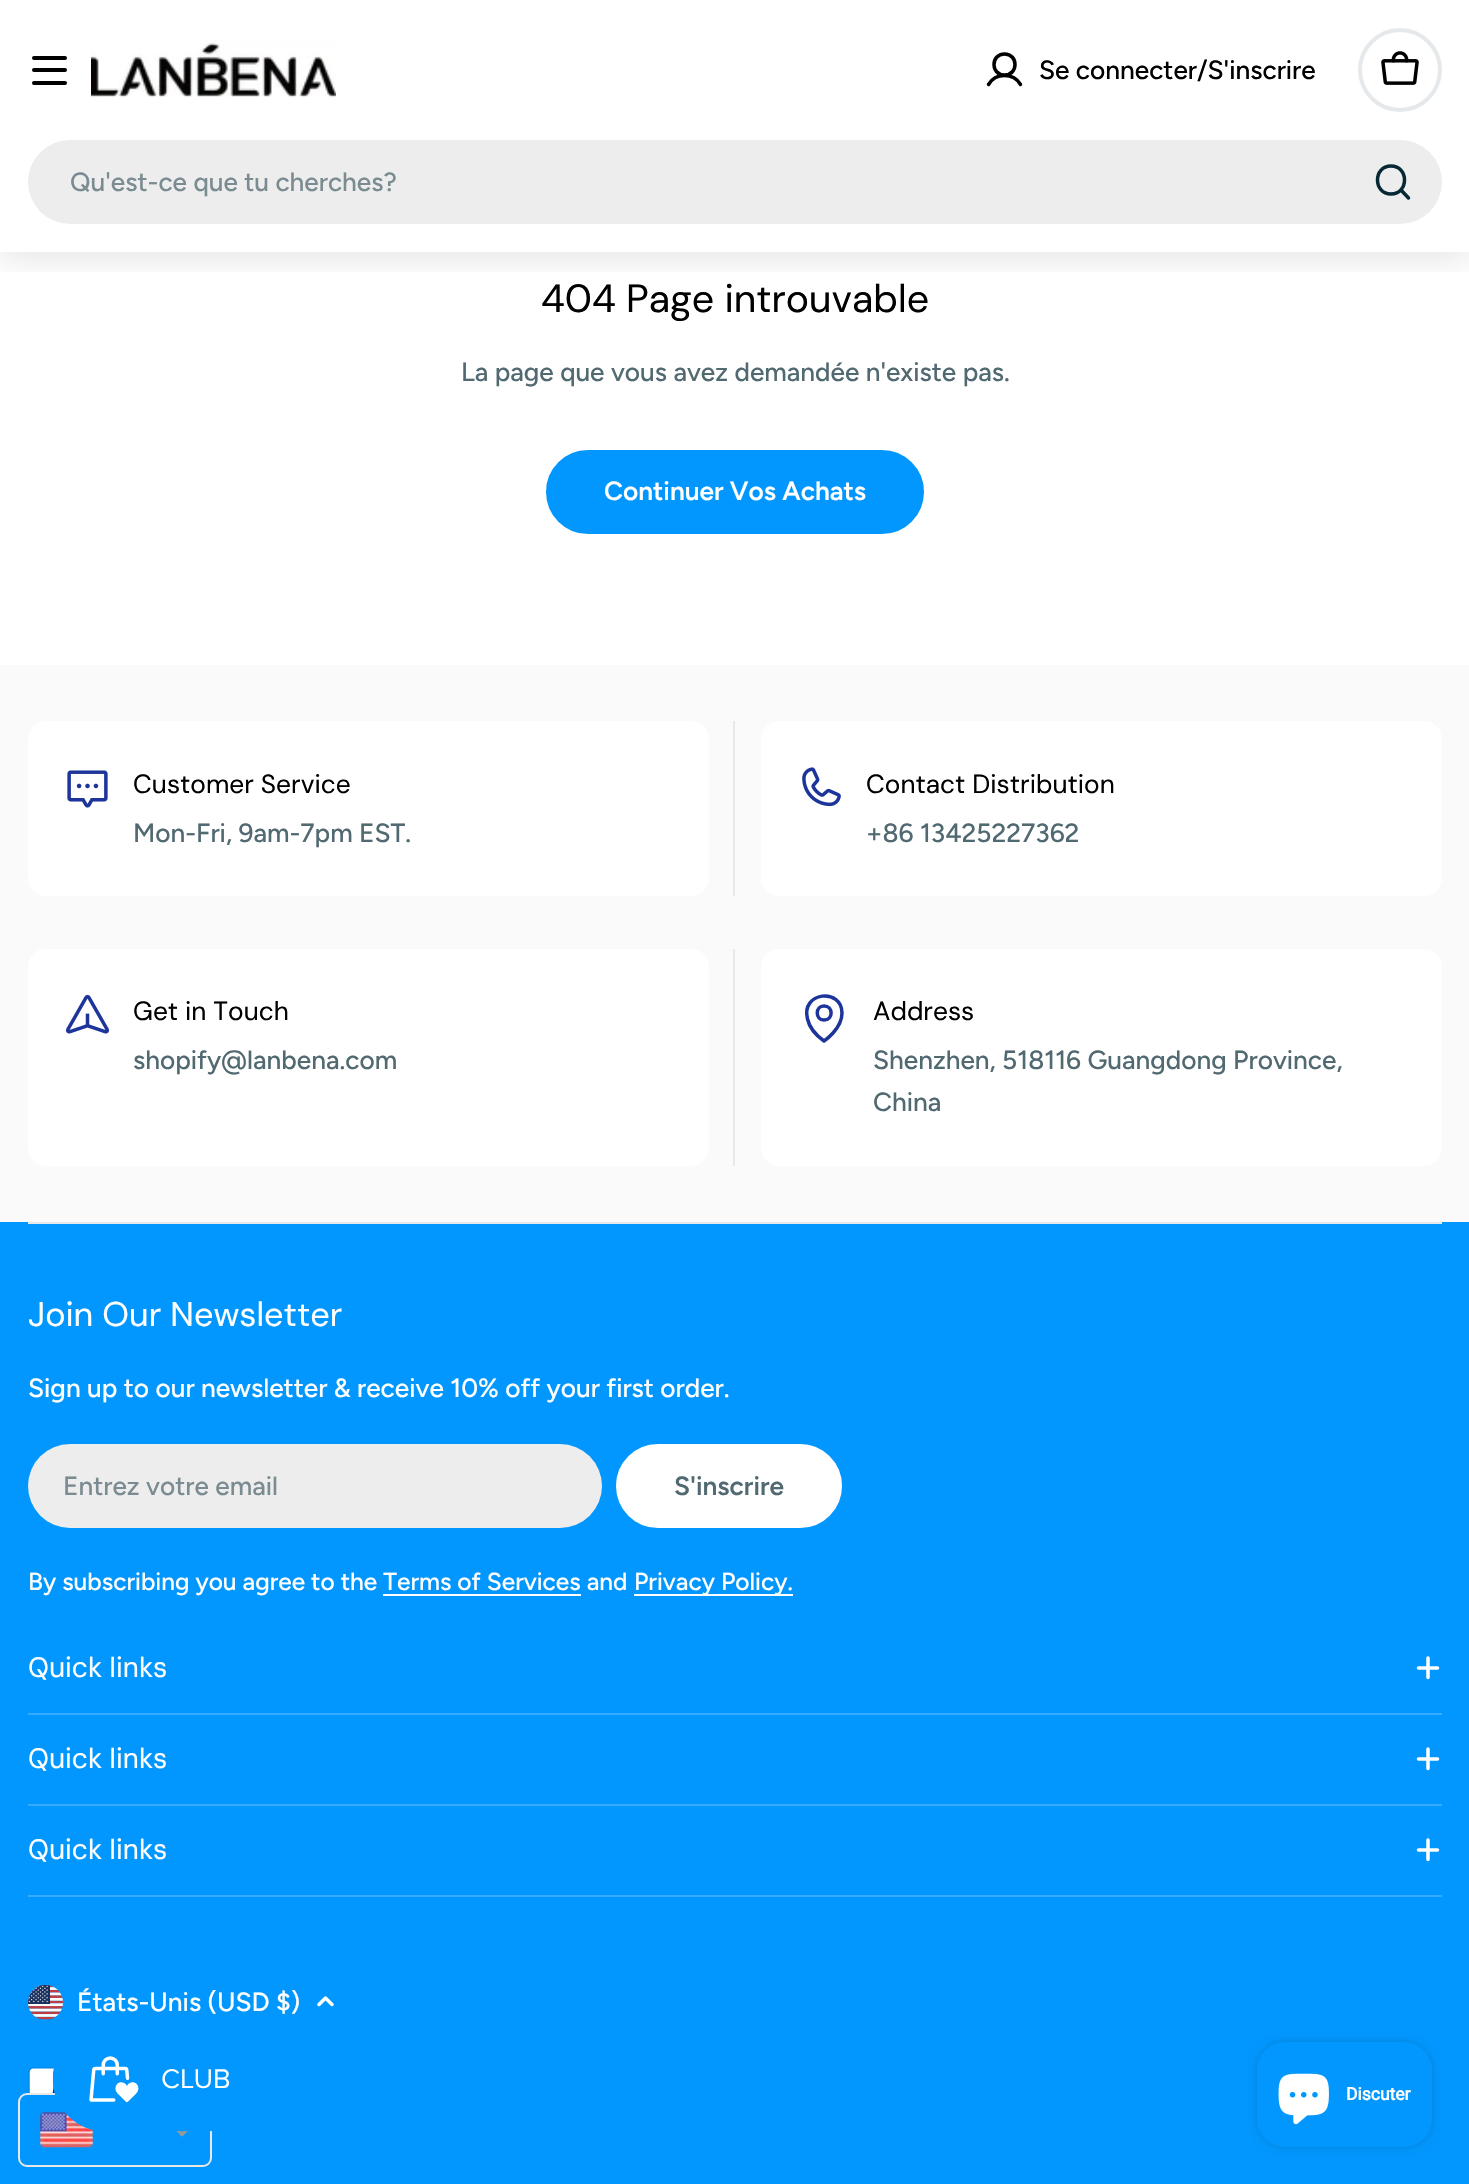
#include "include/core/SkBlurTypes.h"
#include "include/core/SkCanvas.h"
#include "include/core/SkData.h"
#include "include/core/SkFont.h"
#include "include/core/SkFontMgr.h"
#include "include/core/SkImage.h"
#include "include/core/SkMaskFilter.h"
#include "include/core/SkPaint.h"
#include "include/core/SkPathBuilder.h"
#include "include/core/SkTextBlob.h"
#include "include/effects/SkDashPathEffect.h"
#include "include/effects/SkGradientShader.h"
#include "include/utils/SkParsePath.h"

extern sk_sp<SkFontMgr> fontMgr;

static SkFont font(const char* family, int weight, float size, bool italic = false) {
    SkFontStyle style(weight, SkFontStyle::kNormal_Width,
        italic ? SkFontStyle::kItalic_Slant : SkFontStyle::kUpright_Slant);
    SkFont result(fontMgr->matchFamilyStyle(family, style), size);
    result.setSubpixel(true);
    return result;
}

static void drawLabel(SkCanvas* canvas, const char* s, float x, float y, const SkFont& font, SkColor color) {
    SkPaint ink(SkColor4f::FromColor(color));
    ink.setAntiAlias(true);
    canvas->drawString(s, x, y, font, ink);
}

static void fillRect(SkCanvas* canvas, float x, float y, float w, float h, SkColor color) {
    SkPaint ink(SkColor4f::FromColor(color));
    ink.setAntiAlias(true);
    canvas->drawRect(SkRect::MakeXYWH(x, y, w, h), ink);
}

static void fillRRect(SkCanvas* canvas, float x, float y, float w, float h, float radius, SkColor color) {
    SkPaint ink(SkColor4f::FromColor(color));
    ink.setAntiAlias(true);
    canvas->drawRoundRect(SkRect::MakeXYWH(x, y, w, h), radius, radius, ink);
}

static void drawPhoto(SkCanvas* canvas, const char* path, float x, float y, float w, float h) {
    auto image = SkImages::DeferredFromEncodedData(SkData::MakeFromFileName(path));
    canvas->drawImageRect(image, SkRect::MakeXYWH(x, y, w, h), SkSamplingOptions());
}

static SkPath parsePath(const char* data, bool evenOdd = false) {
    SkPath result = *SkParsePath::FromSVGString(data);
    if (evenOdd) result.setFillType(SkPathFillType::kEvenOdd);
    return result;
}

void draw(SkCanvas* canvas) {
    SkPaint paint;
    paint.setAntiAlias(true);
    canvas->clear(0xFFFFFFFF);
    canvas->save();
    canvas->clipRect(SkRect::MakeXYWH(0, 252, 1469, 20));
    paint.setColor(0x1A000000);
    paint.setMaskFilter(SkMaskFilter::MakeBlur(kNormal_SkBlurStyle, 16));
    canvas->drawRect(SkRect::MakeXYWH(0, 7, 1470, 252), paint);
    paint.setMaskFilter(nullptr);
    canvas->restore();
    fillRRect(canvas, 32, 68, 35, 4, 2, 0xFF000000);
    fillRRect(canvas, 32, 56, 35, 4, 2, 0xFF000000);
    fillRRect(canvas, 32, 81, 35, 4, 2, 0xFF000000);
    drawPhoto(canvas, "assets/img1.png", 91, 40, 245, 57);
    paint.setStroke(true);
    paint.setStrokeWidth(3.5f);
    paint.setStrokeCap(SkPaint::kRound_Cap);
    paint.setStrokeJoin(SkPaint::kRound_Join);
    paint.setColor(0xFF000000);
    canvas->drawPath(parsePath("M1004.5 75C1018.5 75 1018.5 54 1004.5 54C990.5 54 990.5 75 1004.5 75ZM988.5 84.5C995.5 72.5 1013.5 72.5 1020.5 84.5"), paint);
    SkFont font1 = font("Figtree", 500, 26.25f);
    drawLabel(canvas, "Se connecter/S'inscrire", 1039, 79, font1, 0xFF000000);
    paint.setStrokeWidth(4);
    paint.setStrokeCap(SkPaint::kButt_Cap);
    paint.setStrokeJoin(SkPaint::kMiter_Join);
    paint.setColor(0xFFE6E9EB);
    canvas->drawCircle(1400, 70, 40, paint);
    drawPhoto(canvas, "assets/img2.png", 1381, 51, 38, 34);
    fillRRect(canvas, 28, 140, 1414, 84, 42, 0xFFEDEDED);
    drawLabel(canvas, "Qu'est-ce que tu cherches?", 70, 191, font1, 0xFF7A8B91);
    paint.setStrokeWidth(3.5f);
    paint.setStrokeCap(SkPaint::kRound_Cap);
    paint.setStrokeJoin(SkPaint::kRound_Join);
    paint.setColor(0xFF072835);
    canvas->drawPath(parsePath("M1391 194C1409 194 1409 166 1391 166C1373 166 1373 194 1391 194ZM1401 190L1408.5 198"), paint);
    SkFont font2 = font("DM Sans", 400, 39.25f);
    drawLabel(canvas, "404 Page introuvable", 541, 312, font2, 0xFF000000);
    drawLabel(canvas, "La page que vous avez demandée n'existe pas.", 461, 381, font1, 0xFF516971);
    paint.setStroke(false);
    paint.setColor(0xFF0297FE);
    canvas->drawRoundRect(SkRect::MakeXYWH(547, 451, 376, 82), 41, 41, paint);
    paint.setStroke(true);
    paint.setStrokeWidth(2);
    paint.setStrokeCap(SkPaint::kButt_Cap);
    paint.setStrokeJoin(SkPaint::kMiter_Join);
    canvas->drawRoundRect(SkRect::MakeXYWH(547, 451, 376, 82), 41, 41, paint);
    SkFont font3 = font("Figtree", 600, 26.25f);
    drawLabel(canvas, "Continuer Vos Achats", 604, 500, font3, 0xFFFFFFFF);
    fillRect(canvas, 0, 665, 1469, 557, 0xFFFAFAFA);
    fillRRect(canvas, 28, 721, 681, 175, 18, 0xFFFFFFFF);
    drawPhoto(canvas, "assets/img3.png", 67, 770, 41, 38);
    SkFont font4 = font("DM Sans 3", 400, 26.25f);
    drawLabel(canvas, "Customer Service", 133, 793, font4, 0xFF000000);
    drawLabel(canvas, "Mon-Fri, 9am-7pm EST.", 133, 842, font1, 0xFF516971);
    fillRect(canvas, 733, 721, 2, 175, 0xFFE6E9EB);
    fillRRect(canvas, 761, 721, 681, 175, 18, 0xFFFFFFFF);
    drawPhoto(canvas, "assets/img4.png", 802, 767, 39, 40);
    drawLabel(canvas, "Contact Distribution", 866, 793, font4, 0xFF000000);
    drawLabel(canvas, "+86 13425227362", 866, 842, font1, 0xFF516971);
    fillRRect(canvas, 28, 949, 681, 217, 18, 0xFFFFFFFF);
    drawPhoto(canvas, "assets/img5.png", 65, 994, 45, 40);
    drawLabel(canvas, "Get in Touch", 133, 1020, font4, 0xFF000000);
    drawLabel(canvas, "shopify@lanbena.com", 133, 1069, font1, 0xFF516971);
    fillRect(canvas, 733, 949, 2, 217, 0xFFE6E9EB);
    fillRRect(canvas, 761, 949, 681, 217, 18, 0xFFFFFFFF);
    paint.setStrokeWidth(3.5f);
    paint.setStrokeCap(SkPaint::kRound_Cap);
    paint.setStrokeJoin(SkPaint::kRound_Join);
    paint.setColor(0xFF1D349A);
    canvas->drawPath(parsePath("M824 1020C833.5 1020 833.5 1006 824 1006C815 1006 815 1020 824 1020ZM842 1013C842 1029 824 1041 824 1041C817 1036 809.5 1028 807.5 1019C800.5 991.5 842 987.5 842 1013Z"), paint);
    drawLabel(canvas, "Address", 873, 1020, font4, 0xFF000000);
    drawLabel(canvas, "Shenzhen, 518116 Guangdong Province,", 873, 1069, font1, 0xFF516971);
    drawLabel(canvas, "China", 873, 1111, font1, 0xFF516971);
    fillRect(canvas, 0, 1222, 1469, 962, 0xFF0297FE);
    fillRect(canvas, 28, 1222, 1414, 2, 0xFFE6E9EB);
    SkFont font5 = font("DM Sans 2", 400, 34.25f);
    drawLabel(canvas, "Join Our Newsletter", 28, 1326, font5, 0xFFFFFFFF);
    drawLabel(canvas, "Sign up to our newsletter & receive 10% off your first order.", 28, 1397, font1, 0xFFFFFFFF);
    fillRRect(canvas, 28, 1444, 574, 84, 42, 0xFFEDEDED);
    drawLabel(canvas, "Entrez votre email", 63, 1495, font1, 0xFF7A8B91);
    paint.setStroke(false);
    paint.setColor(0xFFFFFFFF);
    canvas->drawRoundRect(SkRect::MakeXYWH(617, 1445, 224, 82), 41, 41, paint);
    paint.setStroke(true);
    paint.setStrokeWidth(2);
    paint.setStrokeCap(SkPaint::kButt_Cap);
    paint.setStrokeJoin(SkPaint::kMiter_Join);
    canvas->drawRoundRect(SkRect::MakeXYWH(617, 1445, 224, 82), 41, 41, paint);
    drawLabel(canvas, "S'inscrire", 674, 1495, font3, 0xFF516971);
    SkFont font6 = font("Figtree", 500, 24.5f);
    drawLabel(canvas, "By subscribing you agree to the Terms of Services and", 28, 1590, font6, 0xFFFFFFFF);
    fillRect(canvas, 634, 1594, 159, 2, 0xFFFFFFFF);
    drawLabel(canvas, "Privacy Policy.", 634, 1590, font6, 0xFFFFFFFF);
    fillRect(canvas, 383, 1594, 198, 2, 0xFFFFFFFF);
    fillRect(canvas, 28, 1713, 1414, 2, 0xFF35ACFE);
    SkFont font7 = font("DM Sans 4", 400, 28);
    drawLabel(canvas, "Quick links", 28, 1677, font7, 0xFFFFFFFF);
    paint.setStrokeWidth(3.5f);
    paint.setStrokeCap(SkPaint::kRound_Cap);
    paint.setStrokeJoin(SkPaint::kRound_Join);
    canvas->drawPath(parsePath("M1418.5 1668H1437.5M1428 1658V1677.5"), paint);
    fillRect(canvas, 28, 1804, 1414, 2, 0xFF35ACFE);
    drawLabel(canvas, "Quick links", 28, 1768, font7, 0xFFFFFFFF);
    canvas->drawPath(parsePath("M1418.5 1759H1437.5M1428 1749V1768.5"), paint);
    fillRect(canvas, 28, 1895, 1414, 2, 0xFF35ACFE);
    drawLabel(canvas, "Quick links", 28, 1859, font7, 0xFFFFFFFF);
    canvas->drawPath(parsePath("M1418.5 1850H1437.5M1428 1840V1859.5"), paint);
    drawPhoto(canvas, "assets/img6.png", 28, 1985, 35, 35);
    drawLabel(canvas, "États-Unis (USD $)", 77, 2011, font1, 0xFFFFFFFF);
    canvas->drawPath(parsePath("M319 2004.5L325.5 1998L332 2004.5"), paint);
    drawPhoto(canvas, "assets/img7.png", 28, 2067, 27, 26);
    paint.setStrokeWidth(2);
    paint.setStrokeCap(SkPaint::kButt_Cap);
    paint.setStrokeJoin(SkPaint::kMiter_Join);
    paint.setColor(0xFFE8E8E8);
    canvas->drawRoundRect(SkRect::MakeXYWH(19, 2094, 192, 72), 8, 8, paint);
    drawPhoto(canvas, "assets/img10.png", 40, 2112, 53, 36);
    paint.setStroke(false);
    paint.setColor(0xFF999999);
    canvas->drawPath(parsePath("M188.5 2125.5L191 2128L182 2136.5L179.5 2134.5Z"), paint);
    canvas->drawPath(parsePath("M176 2125.5L184.5 2134.5L182 2136.5L173.5 2128Z"), paint);
    drawPhoto(canvas, "assets/img8.png", 52, 2056, 178, 76);
    paint.setColor(0x26000000);
    paint.setMaskFilter(SkMaskFilter::MakeBlur(kNormal_SkBlurStyle, 4.5f));
    canvas->drawRoundRect(SkRect::MakeXYWH(1257, 2042, 175, 105), 28, 28, paint);
    paint.setMaskFilter(nullptr);
    fillRRect(canvas, 1257, 2042, 175, 105, 28, 0xFF0297FE);
    drawPhoto(canvas, "assets/img9.png", 1278, 2073, 51, 52);
    SkFont font8 = font("Roboto", 700, 17.5f);
    drawLabel(canvas, "Discuter", 1346, 2100, font8, 0xFFFFFFFF);
}
